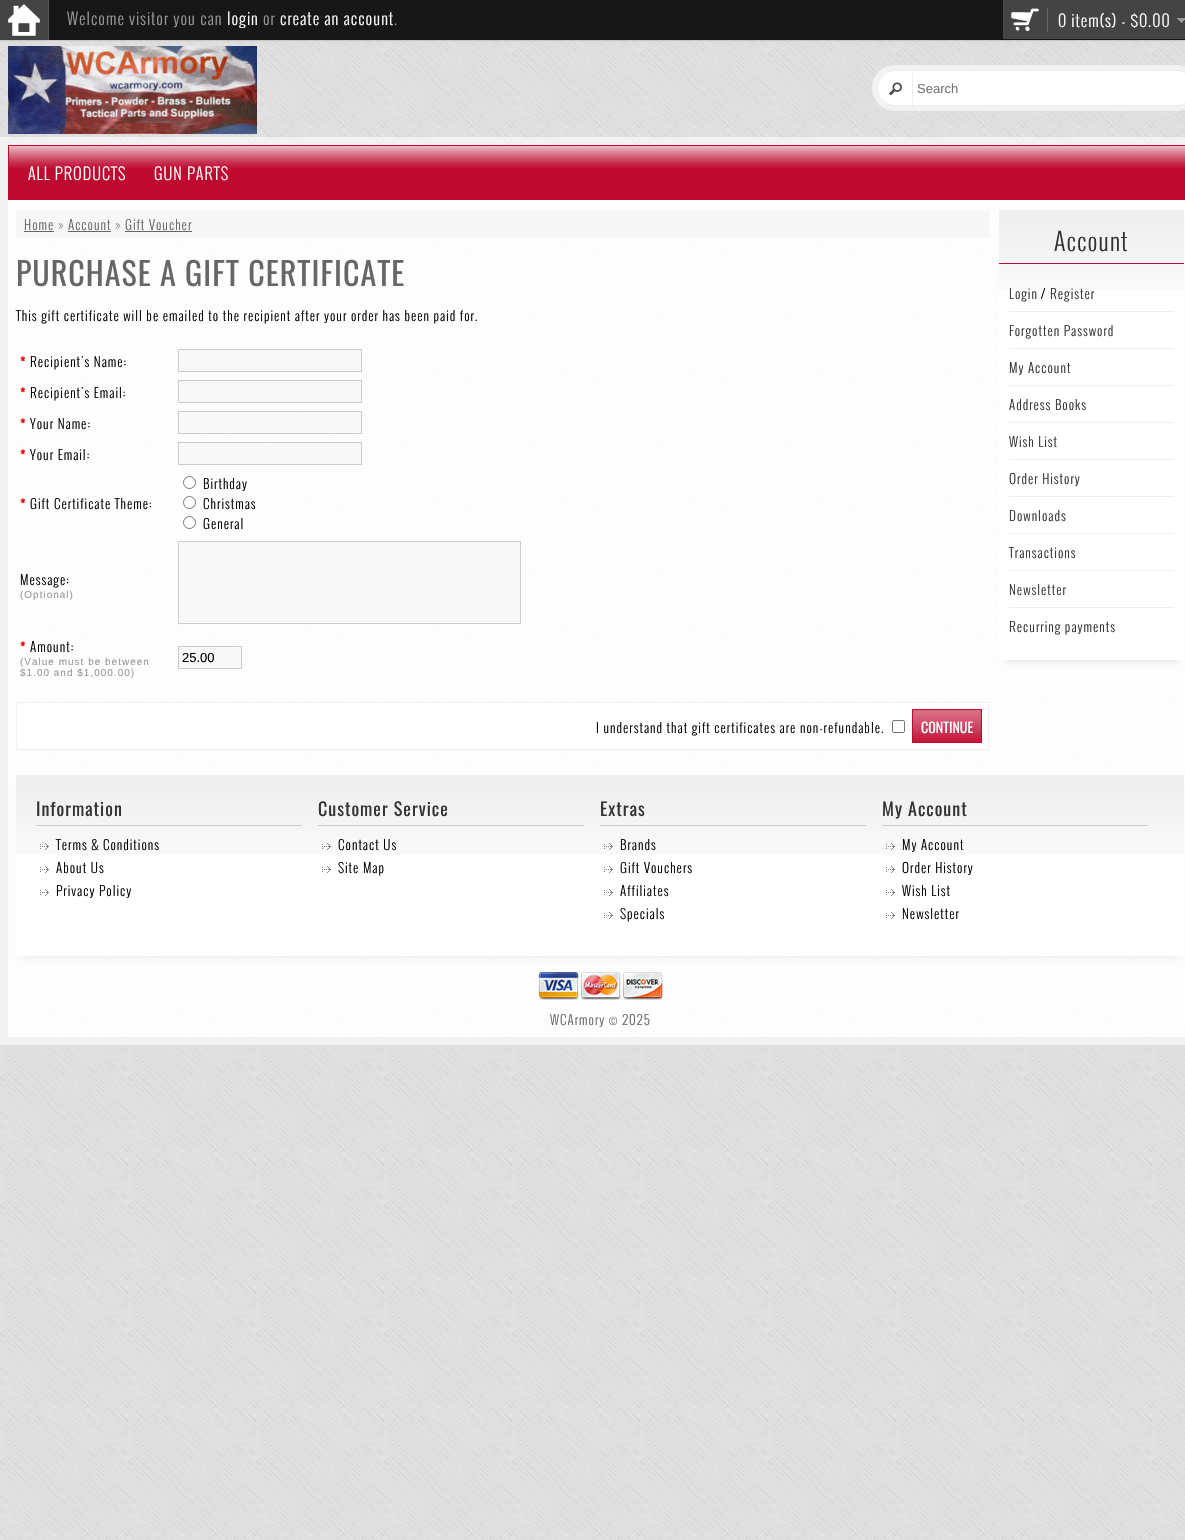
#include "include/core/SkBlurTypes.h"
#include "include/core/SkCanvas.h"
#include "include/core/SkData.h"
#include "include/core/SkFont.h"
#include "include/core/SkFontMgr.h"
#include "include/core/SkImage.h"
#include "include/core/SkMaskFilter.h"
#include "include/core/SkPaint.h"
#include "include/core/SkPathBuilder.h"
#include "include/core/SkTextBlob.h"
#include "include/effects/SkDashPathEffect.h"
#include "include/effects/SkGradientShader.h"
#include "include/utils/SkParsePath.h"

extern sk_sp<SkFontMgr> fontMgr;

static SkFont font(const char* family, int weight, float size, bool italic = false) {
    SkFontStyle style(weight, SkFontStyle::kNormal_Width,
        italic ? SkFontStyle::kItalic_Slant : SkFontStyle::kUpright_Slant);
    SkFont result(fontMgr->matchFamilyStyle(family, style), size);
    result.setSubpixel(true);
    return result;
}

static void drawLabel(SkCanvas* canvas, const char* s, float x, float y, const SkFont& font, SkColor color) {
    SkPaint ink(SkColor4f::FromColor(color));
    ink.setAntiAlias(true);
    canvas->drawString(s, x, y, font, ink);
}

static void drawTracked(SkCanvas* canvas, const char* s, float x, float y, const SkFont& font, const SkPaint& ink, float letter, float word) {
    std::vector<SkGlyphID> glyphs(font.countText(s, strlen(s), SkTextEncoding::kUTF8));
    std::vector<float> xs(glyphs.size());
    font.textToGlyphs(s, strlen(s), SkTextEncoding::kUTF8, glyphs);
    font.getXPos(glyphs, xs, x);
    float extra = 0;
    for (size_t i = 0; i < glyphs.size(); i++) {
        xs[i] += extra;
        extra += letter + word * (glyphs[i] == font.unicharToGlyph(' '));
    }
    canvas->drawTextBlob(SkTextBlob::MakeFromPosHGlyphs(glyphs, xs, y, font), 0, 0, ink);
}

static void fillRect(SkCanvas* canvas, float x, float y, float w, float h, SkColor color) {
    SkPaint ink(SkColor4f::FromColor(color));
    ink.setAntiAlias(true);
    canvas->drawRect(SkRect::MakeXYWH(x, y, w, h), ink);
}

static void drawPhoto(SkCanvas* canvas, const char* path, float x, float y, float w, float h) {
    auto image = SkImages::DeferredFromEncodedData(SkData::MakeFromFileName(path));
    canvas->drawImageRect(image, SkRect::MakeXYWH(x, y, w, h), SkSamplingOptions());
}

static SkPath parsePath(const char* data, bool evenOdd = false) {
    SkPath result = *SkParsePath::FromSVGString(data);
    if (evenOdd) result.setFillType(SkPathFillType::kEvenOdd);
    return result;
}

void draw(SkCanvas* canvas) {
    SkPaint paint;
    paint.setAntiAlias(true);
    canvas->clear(0xFFFFFFFF);
    drawPhoto(canvas, "assets/img1.png", 0, 40, 1185, 1500);
    paint.setColor(0xFF999999);
    paint.setMaskFilter(SkMaskFilter::MakeBlur(kNormal_SkBlurStyle, 1));
    canvas->drawRect(SkRect::MakeXYWH(0, 0, 1185, 40), paint);
    paint.setMaskFilter(nullptr);
    fillRect(canvas, 49, 0, 1136, 40, 0xFF171717);
    fillRect(canvas, 0, 0, 49, 40, 0xFF444444);
    paint.setStroke(true);
    paint.setStrokeWidth(1);
    paint.setColor(0xFF666666);
    paint.setPathEffect(SkDashPathEffect::Make({{1, 1}}, 0));
    canvas->drawPath(parsePath("M48.5 0V40"), paint);
    paint.setPathEffect(nullptr);
    drawPhoto(canvas, "assets/img2.png", 8, 4, 32, 32);
    SkFont font1 = font("Oswald", 300, 16);
    paint.setStroke(false);
    paint.setColor(0xFF999999);
    drawTracked(canvas, "Welcome visitor you can", 67, 25, font1, paint, 1, 0);
    paint.setColor(0xFFFFFFFF);
    drawTracked(canvas, "login", 227, 25, font1, paint, 1, 0);
    paint.setColor(0xFF999999);
    drawTracked(canvas, "or", 263, 25, font1, paint, 1, 0);
    paint.setColor(0xFFFFFFFF);
    drawTracked(canvas, "create an account", 280, 25, font1, paint, 1, 0);
    paint.setColor(0xFF999999);
    drawTracked(canvas, ".", 394, 25, font1, paint, 1, 0);
    fillRect(canvas, 1003, 0, 182, 39, 0xFF444444);
    drawPhoto(canvas, "assets/img3.png", 1011, 8, 28, 24);
    paint.setColor(0xFFFFFFFF);
    drawTracked(canvas, "0 item(s) - $0.00", 1058, 27, font1, paint, 1, 0);
    fillRect(canvas, 1047, 8, 1, 24, 0xFF666666);
    drawPhoto(canvas, "assets/img4.png", 1177, 18, 8, 5);
    drawPhoto(canvas, "assets/img5.png", 8, 46, 249, 88);
    drawPhoto(canvas, "assets/img6.png", 872, 65, 313, 46);
    canvas->drawRoundRect(SkRect::MakeXYWH(877.5f, 70.5f, 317, 35), 17.5f, 17.5f, paint);
    paint.setStroke(true);
    paint.setColor(0xFFEEEEEE);
    canvas->drawRoundRect(SkRect::MakeXYWH(877.5f, 70.5f, 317, 35), 17.5f, 17.5f, paint);
    drawPhoto(canvas, "assets/img7.png", 889, 82, 13, 13);
    fillRect(canvas, 912, 70, 1, 36, 0xFFEEEEEE);
    SkFont font2 = font("Liberation Sans", 400, 13);
    drawLabel(canvas, "Search", 917, 93, font2, 0xFF757575);
    fillRect(canvas, 0, 137, 1185, 908, 0x99FFFFFF);
    fillRect(canvas, 8, 200, 1177, 837, 0xCCFFFFFF);
    fillRect(canvas, 8, 145, 1177, 55, 0xFFBF0A30);
    drawPhoto(canvas, "assets/img8.png", 9, 146, 1176, 22);
    paint.setStroke(false);
    paint.setColor(0xFFFFFFFF);
    drawTracked(canvas, "ALL PRODUCTS", 28, 180, font1, paint, 1, 0);
    drawTracked(canvas, "GUN PARTS", 154, 180, font1, paint, 1, 0);
    fillRect(canvas, 16, 210, 973, 28, 0xFFF7F7F7);
    SkFont font3 = font("Oswald", 300, 13);
    paint.setColor(0xFF666666);
    drawTracked(canvas, "Home", 24, 230, font3, paint, 1, 0);
    fillRect(canvas, 24, 231, 30, 1, 0xFF666666);
    paint.setColor(0xFF999999);
    drawTracked(canvas, "»", 58, 230, font3, paint, 1, 0);
    paint.setColor(0xFF666666);
    drawTracked(canvas, "Account", 68, 230, font3, paint, 1, 0);
    fillRect(canvas, 68, 231, 43, 1, 0xFF666666);
    paint.setColor(0xFF999999);
    drawTracked(canvas, "»", 115, 230, font3, paint, 1, 0);
    paint.setColor(0xFF666666);
    drawTracked(canvas, "Gift Voucher", 125, 230, font3, paint, 1, 0);
    fillRect(canvas, 125, 231, 67, 1, 0xFF666666);
    SkFont font4 = font("Oswald", 400, 32);
    drawTracked(canvas, "PURCHASE A GIFT CERTIFICATE", 16, 286, font4, paint, 1, 0);
    paint.setColor(0xFF000000);
    drawTracked(canvas, "This gift certificate will be emailed to the recipient after your order has been paid for.", 16, 321, font3, paint, 1, 0);
    SkFont font5 = font("Oswald", 700, 13);
    paint.setColor(0xFFFF0000);
    drawTracked(canvas, "*", 20, 367, font5, paint, 1, 0);
    paint.setColor(0xFF000000);
    drawTracked(canvas, "Recipient's Name:", 30, 367, font3, paint, 1, 0);
    paint.setColor(0xFFF8F8F8);
    canvas->drawRect(SkRect::MakeXYWH(178.5f, 349.5f, 183, 22), paint);
    paint.setStroke(true);
    paint.setColor(0xFFCCCCCC);
    canvas->drawRect(SkRect::MakeXYWH(178.5f, 349.5f, 183, 22), paint);
    paint.setStroke(false);
    paint.setColor(0xFFFF0000);
    drawTracked(canvas, "*", 20, 398, font5, paint, 1, 0);
    paint.setColor(0xFF000000);
    drawTracked(canvas, "Recipient's Email:", 30, 398, font3, paint, 1, 0);
    paint.setColor(0xFFF8F8F8);
    canvas->drawRect(SkRect::MakeXYWH(178.5f, 380.5f, 183, 22), paint);
    paint.setStroke(true);
    paint.setColor(0xFFCCCCCC);
    canvas->drawRect(SkRect::MakeXYWH(178.5f, 380.5f, 183, 22), paint);
    paint.setStroke(false);
    paint.setColor(0xFFFF0000);
    drawTracked(canvas, "*", 20, 429, font5, paint, 1, 0);
    paint.setColor(0xFF000000);
    drawTracked(canvas, "Your Name:", 30, 429, font3, paint, 1, 0);
    paint.setColor(0xFFF8F8F8);
    canvas->drawRect(SkRect::MakeXYWH(178.5f, 411.5f, 183, 22), paint);
    paint.setStroke(true);
    paint.setColor(0xFFCCCCCC);
    canvas->drawRect(SkRect::MakeXYWH(178.5f, 411.5f, 183, 22), paint);
    paint.setStroke(false);
    paint.setColor(0xFFFF0000);
    drawTracked(canvas, "*", 20, 460, font5, paint, 1, 0);
    paint.setColor(0xFF000000);
    drawTracked(canvas, "Your Email:", 30, 460, font3, paint, 1, 0);
    paint.setColor(0xFFF8F8F8);
    canvas->drawRect(SkRect::MakeXYWH(178.5f, 442.5f, 183, 22), paint);
    paint.setStroke(true);
    paint.setColor(0xFFCCCCCC);
    canvas->drawRect(SkRect::MakeXYWH(178.5f, 442.5f, 183, 22), paint);
    paint.setStroke(false);
    paint.setColor(0xFFFF0000);
    drawTracked(canvas, "*", 20, 509, font5, paint, 1, 0);
    paint.setColor(0xFF000000);
    drawTracked(canvas, "Gift Certificate Theme:", 30, 509, font3, paint, 1, 0);
    paint.setColor(0xFFFFFFFF);
    canvas->drawCircle(189.5f, 482.5f, 6, paint);
    paint.setStroke(true);
    paint.setColor(0xFF767676);
    canvas->drawCircle(189.5f, 482.5f, 6, paint);
    paint.setStroke(false);
    paint.setColor(0xFF000000);
    drawTracked(canvas, "Birthday", 203, 489, font3, paint, 1, 0);
    paint.setColor(0xFFFFFFFF);
    canvas->drawCircle(189.5f, 502.5f, 6, paint);
    paint.setStroke(true);
    paint.setColor(0xFF767676);
    canvas->drawCircle(189.5f, 502.5f, 6, paint);
    paint.setStroke(false);
    paint.setColor(0xFF000000);
    drawTracked(canvas, "Christmas", 203, 509, font3, paint, 1, 0);
    paint.setColor(0xFFFFFFFF);
    canvas->drawCircle(189.5f, 522.5f, 6, paint);
    paint.setStroke(true);
    paint.setColor(0xFF767676);
    canvas->drawCircle(189.5f, 522.5f, 6, paint);
    paint.setStroke(false);
    paint.setColor(0xFF000000);
    drawTracked(canvas, "General", 203, 529, font3, paint, 1, 0);
    drawTracked(canvas, "Message:", 20, 585, font3, paint, 1, 0);
    SkFont font6 = font("Liberation Sans", 400, 10);
    paint.setColor(0xFF999999);
    drawTracked(canvas, "(Optional)", 20, 598, font6, paint, 1, 0);
    paint.setColor(0xFFF8F8F8);
    canvas->drawRect(SkRect::MakeXYWH(178.5f, 541.5f, 342, 82), paint);
    paint.setStroke(true);
    paint.setColor(0xFFCCCCCC);
    canvas->drawRect(SkRect::MakeXYWH(178.5f, 541.5f, 342, 82), paint);
    paint.setStroke(false);
    paint.setColor(0xFFFF0000);
    drawTracked(canvas, "*", 20, 652, font5, paint, 1, 0);
    paint.setColor(0xFF000000);
    drawTracked(canvas, "Amount:", 30, 652, font3, paint, 1, 0);
    paint.setColor(0xFF999999);
    drawTracked(canvas, "(Value must be between", 20, 665, font6, paint, 1, 0);
    drawTracked(canvas, "$1.00 and $1,000.00)", 20, 676, font6, paint, 1, 0);
    paint.setColor(0xFFF8F8F8);
    canvas->drawRect(SkRect::MakeXYWH(178.5f, 646.5f, 63, 22), paint);
    paint.setStroke(true);
    paint.setColor(0xFFCCCCCC);
    canvas->drawRect(SkRect::MakeXYWH(178.5f, 646.5f, 63, 22), paint);
    drawLabel(canvas, "25.00", 182, 662, font2, 0xFF000000);
    paint.setStroke(false);
    paint.setColor(0xFFFFFFFF);
    canvas->drawRect(SkRect::MakeXYWH(16.5f, 702.5f, 972, 47), paint);
    paint.setStroke(true);
    paint.setColor(0xFFEEEEEE);
    canvas->drawRect(SkRect::MakeXYWH(16.5f, 702.5f, 972, 47), paint);
    paint.setStroke(false);
    paint.setColor(0xFF000000);
    drawTracked(canvas, "I understand that gift certificates are non-refundable.", 596, 733, font3, paint, 1, 0);
    paint.setStroke(true);
    paint.setColor(0xFF767676);
    canvas->drawRoundRect(SkRect::MakeXYWH(892.5f, 720.5f, 12, 12), 1.5f, 1.5f, paint);
    fillRect(canvas, 913, 710, 68, 32, 0xFFBF0A30);
    drawPhoto(canvas, "assets/img9.png", 913, 710, 68, 32);
    paint.setColor(0xFFBF0A30);
    canvas->drawRect(SkRect::MakeXYWH(912.5f, 709.5f, 69, 33), paint);
    SkFont font7 = font("Oswald", 400, 14);
    drawLabel(canvas, "CONTINUE", 921, 733, font7, 0xFFFFFFFF);
    paint.setStroke(false);
    paint.setColor(0xFFE7E7E7);
    paint.setMaskFilter(SkMaskFilter::MakeBlur(kNormal_SkBlurStyle, 3));
    canvas->drawRect(SkRect::MakeXYWH(1005, 224, 173, 438), paint);
    paint.setMaskFilter(nullptr);
    fillRect(canvas, 999, 290, 185, 370, 0xFFFFFFFF);
    drawPhoto(canvas, "assets/img10.png", 999, 210, 185, 80);
    fillRect(canvas, 999, 262, 185, 1, 0xFFFFFFFF);
    SkFont font8 = font("Oswald", 300, 24);
    paint.setColor(0xFF333333);
    drawTracked(canvas, "Account", 1054, 251, font8, paint, 1, 0);
    fillRect(canvas, 999, 263, 185, 1, 0xFFBF0A30);
    drawTracked(canvas, "Login", 1009, 299, font3, paint, 1, 0);
    paint.setColor(0xFF000000);
    drawTracked(canvas, "/", 1041, 299, font3, paint, 1, 0);
    paint.setColor(0xFF333333);
    drawTracked(canvas, "Register", 1050, 299, font3, paint, 1, 0);
    fillRect(canvas, 1009, 311, 165, 1, 0xFFEEEEEE);
    drawTracked(canvas, "Forgotten Password", 1009, 336, font3, paint, 1, 0);
    fillRect(canvas, 1009, 348, 165, 1, 0xFFEEEEEE);
    drawTracked(canvas, "My Account", 1009, 373, font3, paint, 1, 0);
    fillRect(canvas, 1009, 385, 165, 1, 0xFFEEEEEE);
    drawTracked(canvas, "Address Books", 1009, 410, font3, paint, 1, 0);
    fillRect(canvas, 1009, 422, 165, 1, 0xFFEEEEEE);
    drawTracked(canvas, "Wish List", 1009, 447, font3, paint, 1, 0);
    fillRect(canvas, 1009, 459, 165, 1, 0xFFEEEEEE);
    drawTracked(canvas, "Order History", 1009, 484, font3, paint, 1, 0);
    fillRect(canvas, 1009, 496, 165, 1, 0xFFEEEEEE);
    drawTracked(canvas, "Downloads", 1009, 521, font3, paint, 1, 0);
    fillRect(canvas, 1009, 533, 165, 1, 0xFFEEEEEE);
    drawTracked(canvas, "Transactions", 1009, 558, font3, paint, 1, 0);
    fillRect(canvas, 1009, 570, 165, 1, 0xFFEEEEEE);
    drawTracked(canvas, "Newsletter", 1009, 595, font3, paint, 1, 0);
    fillRect(canvas, 1009, 607, 165, 1, 0xFFEEEEEE);
    drawTracked(canvas, "Recurring payments", 1009, 632, font3, paint, 1, 0);
    paint.setColor(0xFFEEEEEE);
    paint.setMaskFilter(SkMaskFilter::MakeBlur(kNormal_SkBlurStyle, 3));
    canvas->drawRect(SkRect::MakeXYWH(22, 789, 1156, 169), paint);
    paint.setMaskFilter(nullptr);
    fillRect(canvas, 16, 855, 1168, 101, 0xFFFFFFFF);
    drawPhoto(canvas, "assets/img11.png", 16, 775, 1168, 80);
    fillRect(canvas, 36, 825, 266, 1, 0xFFCCCCCC);
    SkFont font9 = font("Oswald", 400, 18);
    paint.setColor(0xFF333333);
    drawTracked(canvas, "Information", 36, 816, font9, paint, 1, 0);
    drawPhoto(canvas, "assets/img12.png", 40, 843, 9, 7);
    paint.setColor(0xFF000000);
    drawTracked(canvas, "Terms & Conditions", 56, 850, font3, paint, 1, 0);
    drawPhoto(canvas, "assets/img13.png", 40, 866, 9, 7);
    drawTracked(canvas, "About Us", 56, 873, font3, paint, 1, 0);
    drawPhoto(canvas, "assets/img13.png", 40, 889, 9, 7);
    drawTracked(canvas, "Privacy Policy", 56, 896, font3, paint, 1, 0);
    fillRect(canvas, 318, 825, 266, 1, 0xFFCCCCCC);
    paint.setColor(0xFF333333);
    drawTracked(canvas, "Customer Service", 318, 816, font9, paint, 1, 0);
    drawPhoto(canvas, "assets/img12.png", 322, 843, 9, 7);
    paint.setColor(0xFF000000);
    drawTracked(canvas, "Contact Us", 338, 850, font3, paint, 1, 0);
    drawPhoto(canvas, "assets/img13.png", 322, 866, 9, 7);
    drawTracked(canvas, "Site Map", 338, 873, font3, paint, 1, 0);
    fillRect(canvas, 600, 825, 266, 1, 0xFFCCCCCC);
    paint.setColor(0xFF333333);
    drawTracked(canvas, "Extras", 600, 816, font9, paint, 1, 0);
    drawPhoto(canvas, "assets/img12.png", 604, 843, 9, 7);
    paint.setColor(0xFF000000);
    drawTracked(canvas, "Brands", 620, 850, font3, paint, 1, 0);
    drawPhoto(canvas, "assets/img13.png", 604, 866, 9, 7);
    drawTracked(canvas, "Gift Vouchers", 620, 873, font3, paint, 1, 0);
    drawPhoto(canvas, "assets/img13.png", 604, 889, 9, 7);
    drawTracked(canvas, "Affiliates", 620, 896, font3, paint, 1, 0);
    drawPhoto(canvas, "assets/img13.png", 604, 912, 9, 7);
    drawTracked(canvas, "Specials", 620, 919, font3, paint, 1, 0);
    fillRect(canvas, 882, 825, 266, 1, 0xFFCCCCCC);
    paint.setColor(0xFF333333);
    drawTracked(canvas, "My Account", 882, 816, font9, paint, 1, 0);
    drawPhoto(canvas, "assets/img12.png", 886, 843, 9, 7);
    paint.setColor(0xFF000000);
    drawTracked(canvas, "My Account", 902, 850, font3, paint, 1, 0);
    drawPhoto(canvas, "assets/img13.png", 886, 866, 9, 7);
    drawTracked(canvas, "Order History", 902, 873, font3, paint, 1, 0);
    drawPhoto(canvas, "assets/img13.png", 886, 889, 9, 7);
    drawTracked(canvas, "Wish List", 902, 896, font3, paint, 1, 0);
    drawPhoto(canvas, "assets/img13.png", 886, 912, 9, 7);
    drawTracked(canvas, "Newsletter", 902, 919, font3, paint, 1, 0);
    drawPhoto(canvas, "assets/img14.png", 538, 972, 125, 28);
    paint.setColor(0xFF666666);
    drawTracked(canvas, "WCArmory © 2025", 550, 1025, font3, paint, 1, 0);
}
